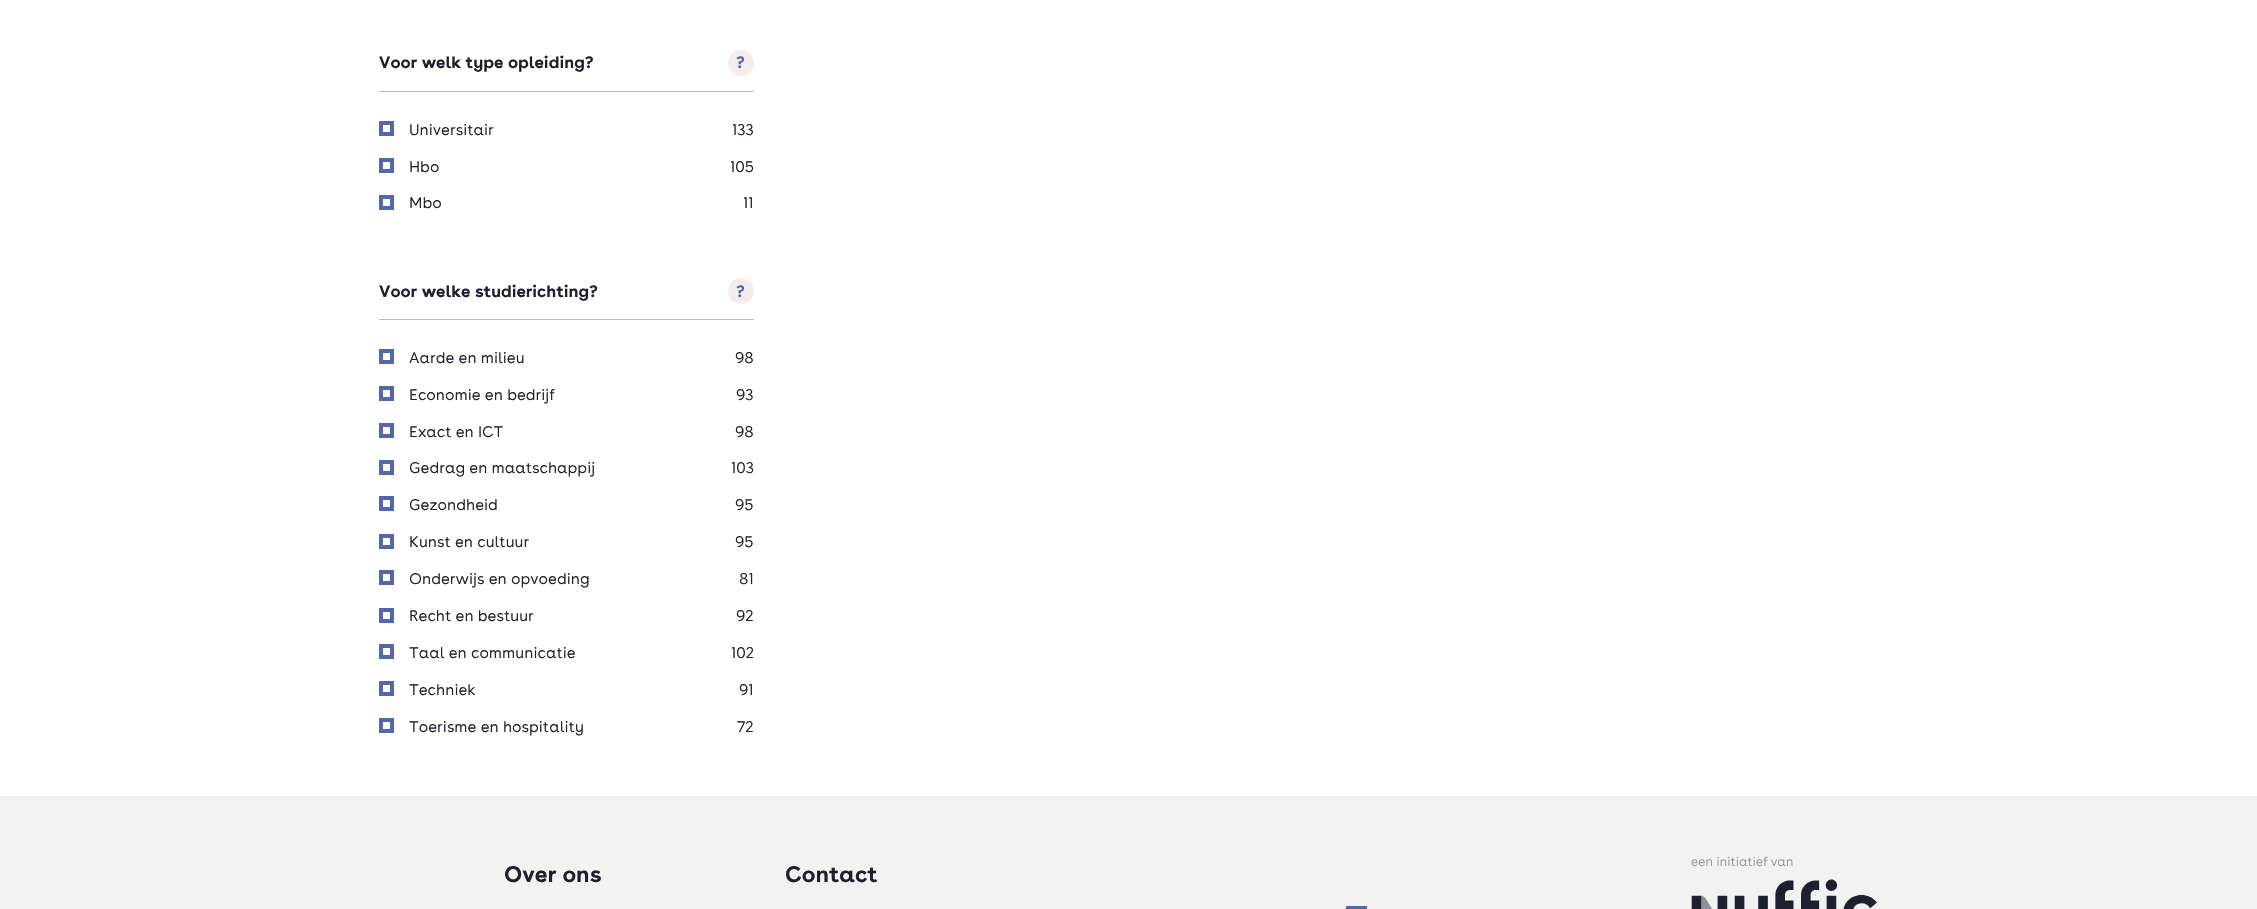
#include "include/core/SkBlurTypes.h"
#include "include/core/SkCanvas.h"
#include "include/core/SkData.h"
#include "include/core/SkFont.h"
#include "include/core/SkFontMgr.h"
#include "include/core/SkImage.h"
#include "include/core/SkMaskFilter.h"
#include "include/core/SkPaint.h"
#include "include/core/SkPathBuilder.h"
#include "include/core/SkTextBlob.h"
#include "include/effects/SkDashPathEffect.h"
#include "include/effects/SkGradientShader.h"
#include "include/utils/SkParsePath.h"

extern sk_sp<SkFontMgr> fontMgr;

static SkFont font(const char* family, int weight, float size, bool italic = false) {
    SkFontStyle style(weight, SkFontStyle::kNormal_Width,
        italic ? SkFontStyle::kItalic_Slant : SkFontStyle::kUpright_Slant);
    SkFont result(fontMgr->matchFamilyStyle(family, style), size);
    result.setSubpixel(true);
    return result;
}

static void drawLabel(SkCanvas* canvas, const char* s, float x, float y, const SkFont& font, SkColor color) {
    SkPaint ink(SkColor4f::FromColor(color));
    ink.setAntiAlias(true);
    canvas->drawString(s, x, y, font, ink);
}

static void fillRect(SkCanvas* canvas, float x, float y, float w, float h, SkColor color) {
    SkPaint ink(SkColor4f::FromColor(color));
    ink.setAntiAlias(true);
    canvas->drawRect(SkRect::MakeXYWH(x, y, w, h), ink);
}

static void drawPhoto(SkCanvas* canvas, const char* path, float x, float y, float w, float h) {
    auto image = SkImages::DeferredFromEncodedData(SkData::MakeFromFileName(path));
    canvas->drawImageRect(image, SkRect::MakeXYWH(x, y, w, h), SkSamplingOptions());
}

void draw(SkCanvas* canvas) {
    SkPaint paint;
    paint.setAntiAlias(true);
    canvas->clear(0xFFFFFFFF);
    fillRect(canvas, 379, 91, 375, 1, 0xFFFBB900);
    SkFont font1 = font("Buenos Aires", 700, 17.5f);
    drawLabel(canvas, "Voor welk type opleiding?", 379, 68, font1, 0xFF1E2030);
    paint.setColor(0xFFF4EDEC);
    canvas->drawCircle(741, 63, 13, paint);
    drawLabel(canvas, "?", 736, 68, font1, 0xFF5467AE);
    paint.setStroke(true);
    paint.setStrokeWidth(4);
    paint.setColor(0xFF5467AE);
    canvas->drawRect(SkRect::MakeXYWH(381, 123, 11, 11), paint);
    SkFont font2 = font("Buenos Aires", 300, 16.25f);
    drawLabel(canvas, "Universitair", 409, 135, font2, 0xFF1E2030);
    drawLabel(canvas, "133", 732, 135, font2, 0xFF1E2030);
    canvas->drawRect(SkRect::MakeXYWH(381, 160, 11, 11), paint);
    drawLabel(canvas, "Hbo", 409, 172, font2, 0xFF1E2030);
    drawLabel(canvas, "105", 730, 172, font2, 0xFF1E2030);
    canvas->drawRect(SkRect::MakeXYWH(381, 197, 11, 11), paint);
    drawLabel(canvas, "Mbo", 409, 208, font2, 0xFF1E2030);
    drawLabel(canvas, "11", 743, 208, font2, 0xFF1E2030);
    fillRect(canvas, 379, 319, 375, 1, 0xFFFBB900);
    drawLabel(canvas, "Voor welke studierichting?", 379, 297, font1, 0xFF1E2030);
    paint.setStroke(false);
    paint.setColor(0xFFF4EDEC);
    canvas->drawCircle(741, 291, 13, paint);
    drawLabel(canvas, "?", 736, 297, font1, 0xFF5467AE);
    paint.setStroke(true);
    paint.setColor(0xFF5467AE);
    canvas->drawRect(SkRect::MakeXYWH(381, 351, 11, 11), paint);
    drawLabel(canvas, "Aarde en milieu", 409, 363, font2, 0xFF1E2030);
    drawLabel(canvas, "98", 735, 363, font2, 0xFF1E2030);
    canvas->drawRect(SkRect::MakeXYWH(381, 388, 11, 11), paint);
    drawLabel(canvas, "Economie en bedrijf", 409, 400, font2, 0xFF1E2030);
    drawLabel(canvas, "93", 736, 400, font2, 0xFF1E2030);
    canvas->drawRect(SkRect::MakeXYWH(381, 425, 11, 11), paint);
    drawLabel(canvas, "Exact en ICT", 409, 437, font2, 0xFF1E2030);
    drawLabel(canvas, "98", 735, 437, font2, 0xFF1E2030);
    canvas->drawRect(SkRect::MakeXYWH(381, 462, 11, 11), paint);
    drawLabel(canvas, "Gedrag en maatschappij", 409, 473, font2, 0xFF1E2030);
    drawLabel(canvas, "103", 731, 473, font2, 0xFF1E2030);
    canvas->drawRect(SkRect::MakeXYWH(381, 498, 11, 11), paint);
    drawLabel(canvas, "Gezondheid", 409, 510, font2, 0xFF1E2030);
    drawLabel(canvas, "95", 735, 510, font2, 0xFF1E2030);
    canvas->drawRect(SkRect::MakeXYWH(381, 536, 11, 11), paint);
    drawLabel(canvas, "Kunst en cultuur", 409, 547, font2, 0xFF1E2030);
    drawLabel(canvas, "95", 735, 547, font2, 0xFF1E2030);
    canvas->drawRect(SkRect::MakeXYWH(381, 572, 11, 11), paint);
    drawLabel(canvas, "Onderwijs en opvoeding", 409, 584, font2, 0xFF1E2030);
    drawLabel(canvas, "81", 739, 584, font2, 0xFF1E2030);
    canvas->drawRect(SkRect::MakeXYWH(381, 610, 11, 11), paint);
    drawLabel(canvas, "Recht en bestuur", 409, 621, font2, 0xFF1E2030);
    drawLabel(canvas, "92", 736, 621, font2, 0xFF1E2030);
    canvas->drawRect(SkRect::MakeXYWH(381, 646, 11, 11), paint);
    drawLabel(canvas, "Taal en communicatie", 409, 658, font2, 0xFF1E2030);
    drawLabel(canvas, "102", 731, 658, font2, 0xFF1E2030);
    canvas->drawRect(SkRect::MakeXYWH(381, 683, 11, 11), paint);
    drawLabel(canvas, "Techniek", 409, 695, font2, 0xFF1E2030);
    drawLabel(canvas, "91", 739, 695, font2, 0xFF1E2030);
    canvas->drawRect(SkRect::MakeXYWH(381, 720, 11, 11), paint);
    drawLabel(canvas, "Toerisme en hospitality", 409, 732, font2, 0xFF1E2030);
    drawLabel(canvas, "72", 737, 732, font2, 0xFF1E2030);
    fillRect(canvas, 0, 796, 2257, 113, 0xFFF2F2F2);
    SkFont font3 = font("Buenos Aires", 700, 23.75f);
    drawLabel(canvas, "Over ons", 504, 882, font3, 0xFF1E2030);
    drawLabel(canvas, "Contact", 785, 882, font3, 0xFF1E2030);
    drawPhoto(canvas, "assets/img1.png", 1691, 856, 186, 53);
    fillRect(canvas, 1346, 906, 21, 3, 0xFF5467AE);
}
